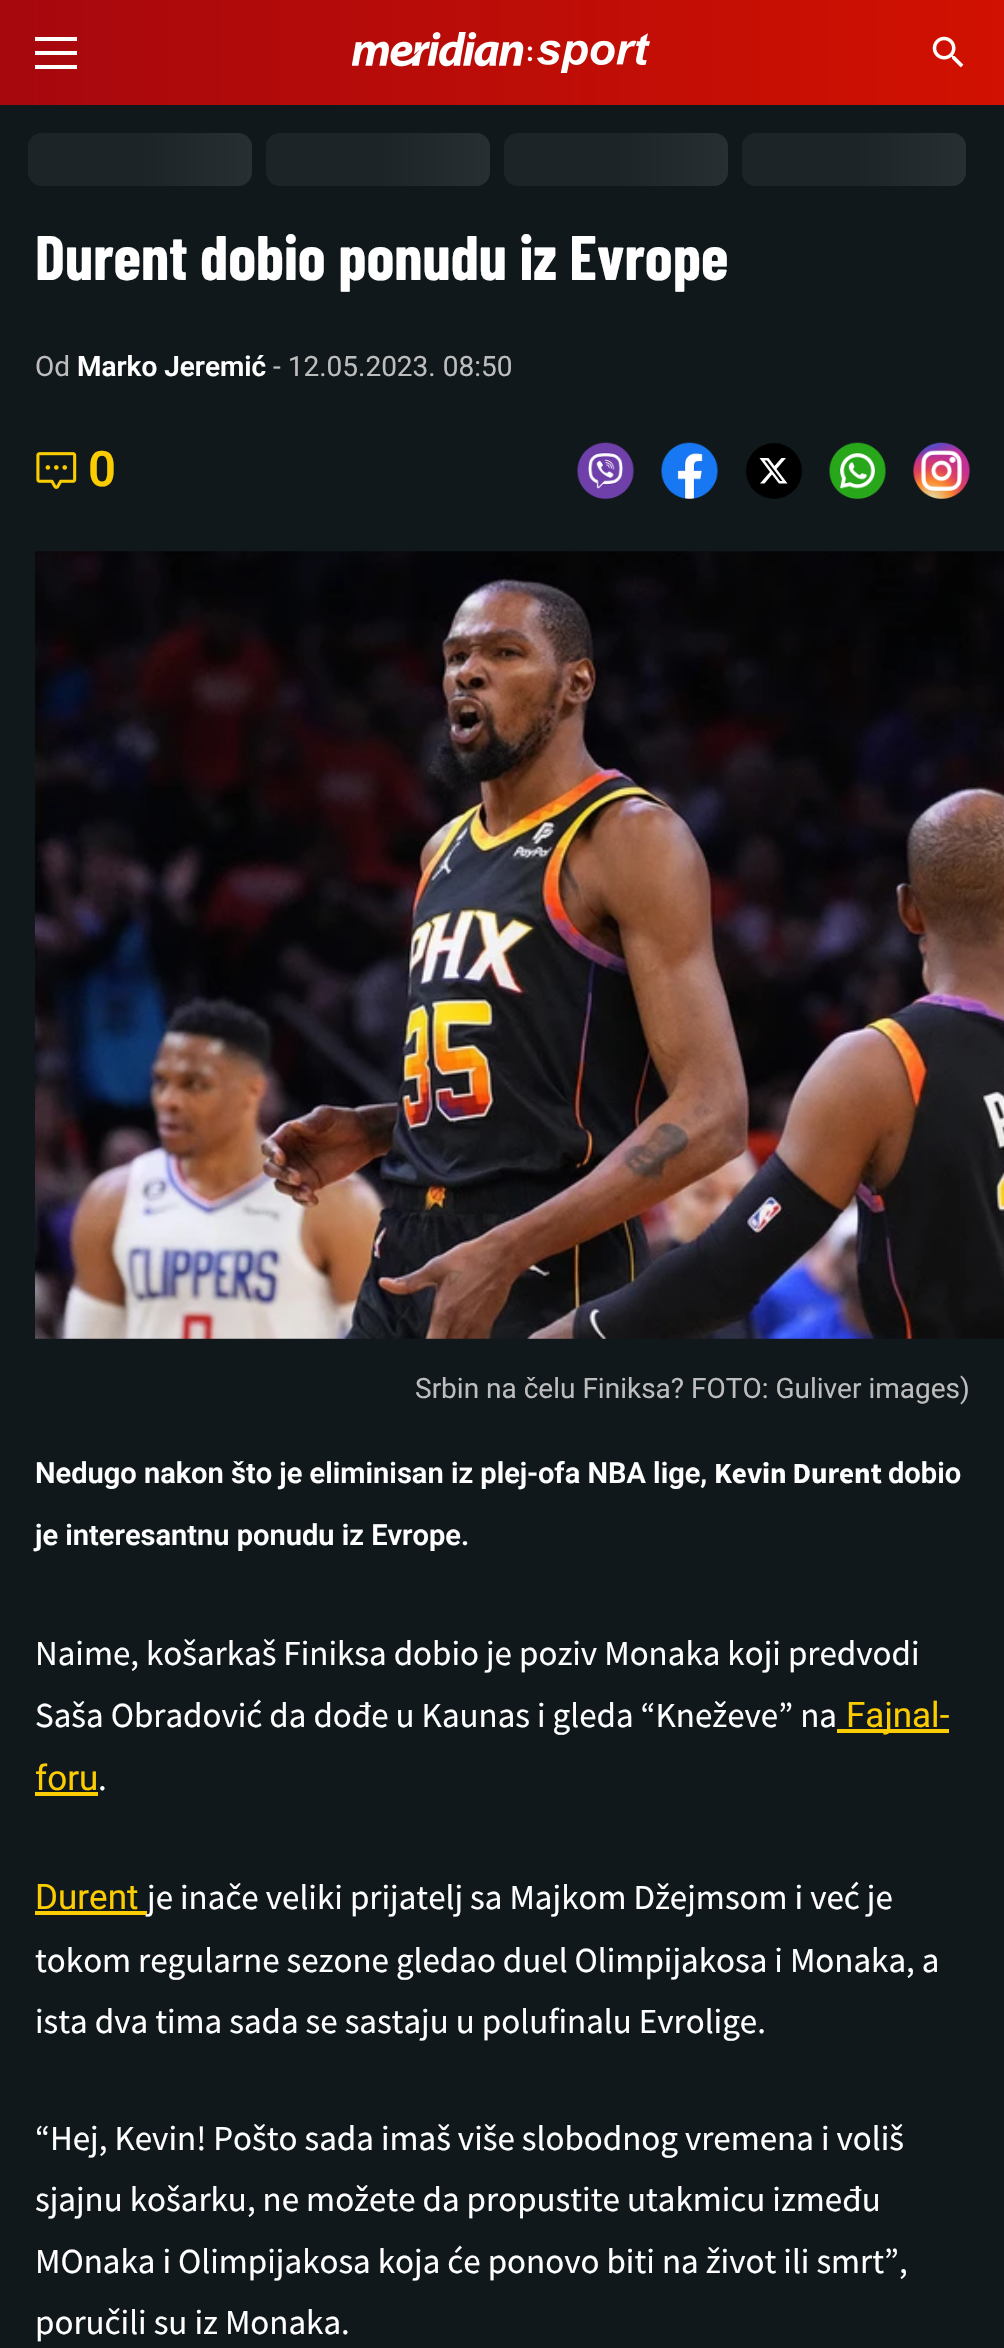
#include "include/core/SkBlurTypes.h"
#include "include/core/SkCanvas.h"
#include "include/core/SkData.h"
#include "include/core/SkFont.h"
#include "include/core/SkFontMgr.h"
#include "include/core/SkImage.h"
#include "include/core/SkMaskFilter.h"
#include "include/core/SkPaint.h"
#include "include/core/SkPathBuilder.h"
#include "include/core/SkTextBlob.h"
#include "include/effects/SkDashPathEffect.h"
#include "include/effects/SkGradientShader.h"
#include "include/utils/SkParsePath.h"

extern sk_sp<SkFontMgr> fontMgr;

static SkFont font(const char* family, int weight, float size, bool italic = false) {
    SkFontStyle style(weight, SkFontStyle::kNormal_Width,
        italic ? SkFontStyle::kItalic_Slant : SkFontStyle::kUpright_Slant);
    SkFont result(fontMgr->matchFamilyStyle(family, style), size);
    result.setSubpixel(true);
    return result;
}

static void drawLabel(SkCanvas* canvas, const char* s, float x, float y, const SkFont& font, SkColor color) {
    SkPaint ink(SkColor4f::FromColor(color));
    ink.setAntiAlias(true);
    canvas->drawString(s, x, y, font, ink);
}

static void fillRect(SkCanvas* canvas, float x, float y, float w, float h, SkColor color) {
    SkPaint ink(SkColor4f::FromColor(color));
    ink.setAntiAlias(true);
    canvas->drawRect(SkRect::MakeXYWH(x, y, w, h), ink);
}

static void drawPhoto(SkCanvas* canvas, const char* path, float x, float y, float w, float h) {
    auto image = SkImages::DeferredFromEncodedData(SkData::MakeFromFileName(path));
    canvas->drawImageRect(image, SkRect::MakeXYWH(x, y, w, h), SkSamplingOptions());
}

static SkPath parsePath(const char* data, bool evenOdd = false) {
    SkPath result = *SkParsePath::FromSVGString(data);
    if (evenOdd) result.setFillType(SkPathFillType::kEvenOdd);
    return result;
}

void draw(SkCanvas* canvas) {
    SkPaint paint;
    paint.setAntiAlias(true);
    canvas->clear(0xFF10181C);
    {
        const SkColor colors[] = {0xFFA6080E, 0xFFD11101};
        const float stops[] = {0, 1};
        const SkPoint ends[] = {{0, 53}, {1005, 52}};
        paint.setShader(SkGradientShader::MakeLinear(ends, colors, stops, 2, SkTileMode::kClamp));
        paint.setAlpha(255);
    }
    canvas->drawRect(SkRect::MakeXYWH(0, 0, 1004, 105), paint);
    fillRect(canvas, 35, 37, 42, 4, 0xFFFFFFFF);
    fillRect(canvas, 35, 51, 42, 4, 0xFFFFFFFF);
    fillRect(canvas, 35, 65, 42, 4, 0xFFFFFFFF);
    drawPhoto(canvas, "assets/img1.png", 352, 32, 298, 41);
    drawPhoto(canvas, "assets/img2.png", 932, 36, 32, 32);
    {
        const SkColor colors[] = {0xFF1C2427, 0xFF282F33, 0xFF1C2427};
        const float stops[] = {0.25f, 0.5f, 0.75f};
        const SkPoint ends[] = {{28, 159}, {476, 159}};
        paint.setShader(SkGradientShader::MakeLinear(ends, colors, stops, 3, SkTileMode::kClamp));
        paint.setAlpha(255);
    }
    canvas->drawRoundRect(SkRect::MakeXYWH(28, 133, 224, 53), 14, 14, paint);
    {
        const SkColor colors[] = {0xFF1C2427, 0xFF282F33, 0xFF1C2427};
        const float stops[] = {0.25f, 0.5f, 0.75f};
        const SkPoint ends[] = {{266, 159}, {714, 159}};
        paint.setShader(SkGradientShader::MakeLinear(ends, colors, stops, 3, SkTileMode::kClamp));
        paint.setAlpha(255);
    }
    canvas->drawRoundRect(SkRect::MakeXYWH(266, 133, 224, 53), 14, 14, paint);
    {
        const SkColor colors[] = {0xFF1C2427, 0xFF282F33, 0xFF1C2427};
        const float stops[] = {0.25f, 0.5f, 0.75f};
        const SkPoint ends[] = {{504, 159}, {952, 159}};
        paint.setShader(SkGradientShader::MakeLinear(ends, colors, stops, 3, SkTileMode::kClamp));
        paint.setAlpha(255);
    }
    canvas->drawRoundRect(SkRect::MakeXYWH(504, 133, 224, 53), 14, 14, paint);
    {
        const SkColor colors[] = {0xFF1C2427, 0xFF282F33, 0xFF1C2427};
        const float stops[] = {0.25f, 0.5f, 0.75f};
        const SkPoint ends[] = {{742, 159}, {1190, 159}};
        paint.setShader(SkGradientShader::MakeLinear(ends, colors, stops, 3, SkTileMode::kClamp));
        paint.setAlpha(255);
    }
    canvas->drawRoundRect(SkRect::MakeXYWH(742, 133, 224, 53), 14, 14, paint);
    SkFont font1 = font("Barlow Condensed", 700, 63);
    drawLabel(canvas, "Durent dobio ponudu iz Evrope", 35, 280, font1, 0xFFFFFFFF);
    SkFont font2 = font("Roboto", 400, 28);
    drawLabel(canvas, "Od", 35, 376, font2, 0xFFBDBDBD);
    SkFont font3 = font("Roboto", 600, 28);
    drawLabel(canvas, "Marko Jeremić", 77, 376, font3, 0xFFFFFFFF);
    drawLabel(canvas, "- 12.05.2023. 08:50", 273, 376, font2, 0xFFBDBDBD);
    drawPhoto(canvas, "assets/img3.png", 36, 452, 41, 37);
    SkFont font4 = font("Roboto", 600, 49);
    drawLabel(canvas, "0", 88, 486, font4, 0xFFFACC01);
    drawPhoto(canvas, "assets/img4.png", 577, 442, 57, 57);
    drawPhoto(canvas, "assets/img5.png", 661, 442, 57, 57);
    paint.setShader(nullptr);
    paint.setColor(0xFF000000);
    canvas->drawCircle(774, 471, 28, paint);
    paint.setColor(0xFFFFFFFF);
    canvas->drawPath(parsePath("M781.5 458H786L776.5 469L787.5 483.5H779L772 474.5L764.5 483.5H760L770 472L759.5 458H768.5L774.5 466ZM780 481H782.5L767 460.5H764.5Z"), paint);
    drawPhoto(canvas, "assets/img6.png", 829, 442, 57, 57);
    drawPhoto(canvas, "assets/img7.png", 913, 442, 57, 57);
    drawPhoto(canvas, "assets/img8.png", 35, 551, 969, 788);
    drawLabel(canvas, "Srbin na čelu Finiksa? FOTO: Guliver images)", 415, 1398, font2, 0xFFBDBDBD);
    SkFont font5 = font("Roboto", 600, 29.05f);
    drawLabel(canvas, "Nedugo nakon što je eliminisan iz plej-ofa NBA lige,", 35, 1483, font5, 0xFFFFFFFF);
    SkFont font6 = font("Source Sans Pro", 700, 29.05f);
    drawLabel(canvas, "Kevin Durent", 714, 1483, font6, 0xFFFFFFFF);
    drawLabel(canvas, "dobio", 888, 1483, font5, 0xFFFFFFFF);
    drawLabel(canvas, "je interesantnu ponudu iz Evrope.", 35, 1545, font5, 0xFFFFFFFF);
    SkFont font7 = font("Source Sans Pro", 400, 35);
    drawLabel(canvas, "Naime, košarkaš Finiksa dobio je poziv Monaka koji predvodi", 35, 1665, font7, 0xFFFFFFFF);
    drawLabel(canvas, "Saša Obradović da dođe u Kaunas i gleda “Kneževe” na", 35, 1727, font7, 0xFFFFFFFF);
    fillRect(canvas, 837, 1729, 112, 4, 0xFFFACC01);
    SkFont font8 = font("Roboto", 400, 35);
    drawLabel(canvas, "Fajnal-", 846, 1727, font8, 0xFFFACC01);
    drawLabel(canvas, "foru", 35, 1790, font8, 0xFFFACC01);
    fillRect(canvas, 35, 1792, 63, 4, 0xFFFACC01);
    drawLabel(canvas, ".", 98, 1790, font7, 0xFFFFFFFF);
    drawLabel(canvas, "Durent", 35, 1909, font8, 0xFFFACC01);
    fillRect(canvas, 35, 1911, 112, 4, 0xFFFACC01);
    drawLabel(canvas, "je inače veliki prijatelj sa Majkom Džejmsom i već je", 147, 1909, font7, 0xFFFFFFFF);
    drawLabel(canvas, "tokom regularne sezone gledao duel Olimpijakosa i Monaka, a", 35, 1972, font7, 0xFFFFFFFF);
    drawLabel(canvas, "ista dva tima sada se sastaju u polufinalu Evrolige.", 35, 2033, font7, 0xFFFFFFFF);
    drawLabel(canvas, "“Hej, Kevin! Pošto sada imaš više slobodnog vremena i voliš", 35, 2150, font7, 0xFFFFFFFF);
    drawLabel(canvas, "sjajnu košarku, ne možete da propustite utakmicu između", 35, 2211, font7, 0xFFFFFFFF);
    drawLabel(canvas, "MOnaka i Olimpijakosa koja će ponovo biti na život ili smrt”,", 35, 2273, font7, 0xFFFFFFFF);
    drawLabel(canvas, "poručili su iz Monaka.", 35, 2334, font7, 0xFFFFFFFF);
}
